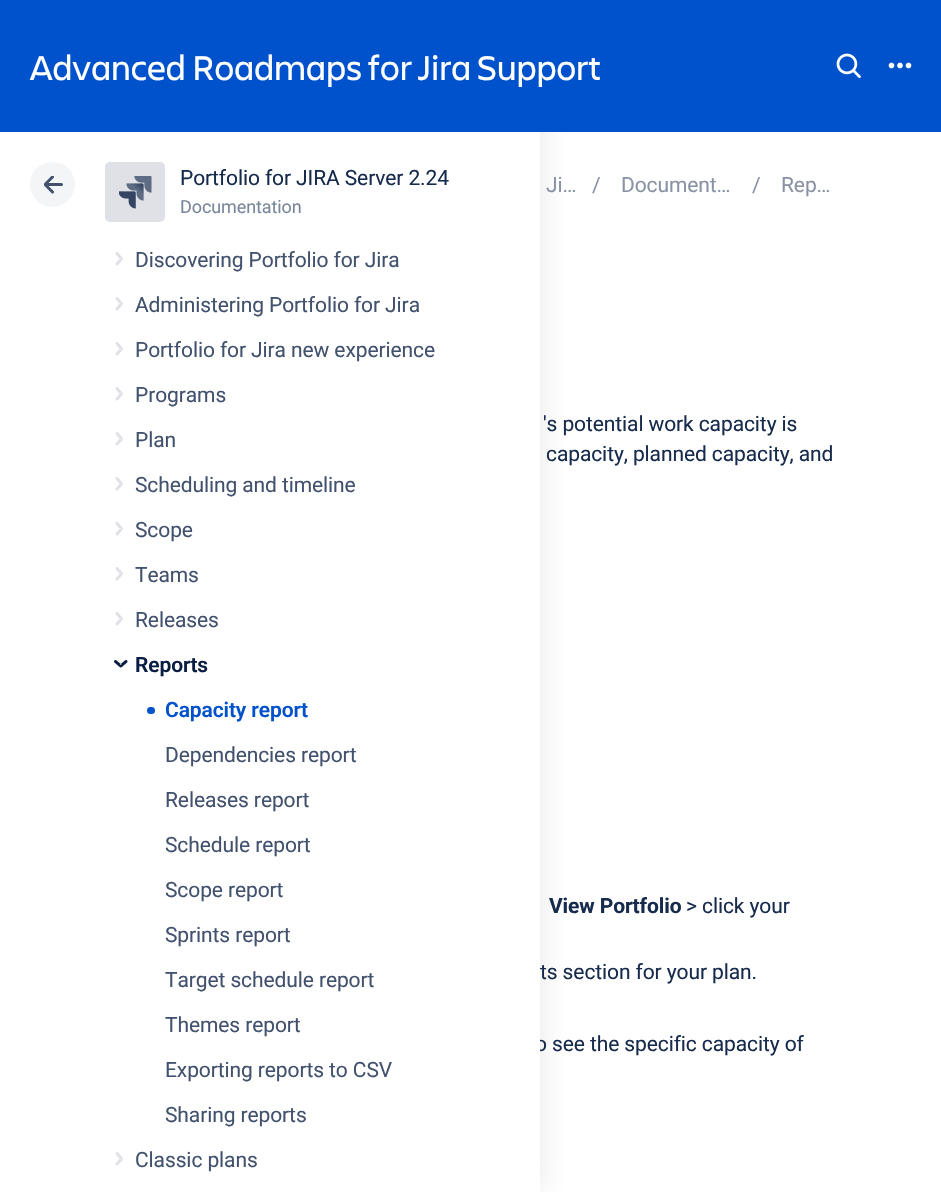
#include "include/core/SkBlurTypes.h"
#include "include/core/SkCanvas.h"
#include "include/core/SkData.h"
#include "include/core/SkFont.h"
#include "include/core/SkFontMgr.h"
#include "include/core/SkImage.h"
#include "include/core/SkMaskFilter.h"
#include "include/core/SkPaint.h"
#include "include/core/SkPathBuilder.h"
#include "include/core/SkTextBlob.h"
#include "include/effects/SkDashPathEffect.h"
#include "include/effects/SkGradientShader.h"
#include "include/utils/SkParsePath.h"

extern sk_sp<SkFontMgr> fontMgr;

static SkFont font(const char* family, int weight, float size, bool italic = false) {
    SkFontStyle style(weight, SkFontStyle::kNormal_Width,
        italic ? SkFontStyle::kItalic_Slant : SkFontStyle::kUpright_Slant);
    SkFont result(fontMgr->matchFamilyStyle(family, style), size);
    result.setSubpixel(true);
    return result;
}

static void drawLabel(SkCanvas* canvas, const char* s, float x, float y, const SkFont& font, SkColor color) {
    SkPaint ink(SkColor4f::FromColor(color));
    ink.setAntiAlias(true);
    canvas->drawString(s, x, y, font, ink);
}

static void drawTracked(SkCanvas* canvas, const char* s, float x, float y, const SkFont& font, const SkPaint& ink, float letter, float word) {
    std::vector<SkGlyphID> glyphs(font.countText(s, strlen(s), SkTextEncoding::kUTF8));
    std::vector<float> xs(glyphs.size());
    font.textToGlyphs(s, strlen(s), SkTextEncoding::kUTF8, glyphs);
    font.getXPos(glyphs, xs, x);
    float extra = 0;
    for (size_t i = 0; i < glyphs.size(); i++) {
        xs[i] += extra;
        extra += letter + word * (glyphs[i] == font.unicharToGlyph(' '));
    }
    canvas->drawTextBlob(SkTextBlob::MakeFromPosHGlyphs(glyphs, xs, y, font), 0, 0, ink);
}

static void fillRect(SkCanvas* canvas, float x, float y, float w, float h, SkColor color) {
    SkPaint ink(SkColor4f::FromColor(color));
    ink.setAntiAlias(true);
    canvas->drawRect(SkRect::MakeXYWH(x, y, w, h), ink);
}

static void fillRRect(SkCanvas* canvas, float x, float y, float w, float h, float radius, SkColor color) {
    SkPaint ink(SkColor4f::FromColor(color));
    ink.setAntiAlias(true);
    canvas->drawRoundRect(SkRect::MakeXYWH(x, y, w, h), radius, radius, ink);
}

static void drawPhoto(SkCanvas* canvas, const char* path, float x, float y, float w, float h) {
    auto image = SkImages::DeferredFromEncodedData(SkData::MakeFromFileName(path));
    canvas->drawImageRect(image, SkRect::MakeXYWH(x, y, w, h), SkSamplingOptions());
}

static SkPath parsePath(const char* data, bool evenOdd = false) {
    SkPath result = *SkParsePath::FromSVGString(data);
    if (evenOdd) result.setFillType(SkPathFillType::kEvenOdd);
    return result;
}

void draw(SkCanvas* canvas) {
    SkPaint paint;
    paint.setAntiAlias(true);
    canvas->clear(0xFFFFFFFF);
    paint.setColor(0x1A161616);
    paint.setMaskFilter(SkMaskFilter::MakeBlur(kNormal_SkBlurStyle, 15));
    canvas->drawRect(SkRect::MakeXYWH(0, 0, 540, 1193), paint);
    paint.setMaskFilter(nullptr);
    fillRect(canvas, 0, 0, 941, 132, 0xFF0052CC);
    SkFont font1 = font("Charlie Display", 400, 36);
    drawLabel(canvas, "Advanced Roadmaps for Jira Support", 30, 80, font1, 0xFFFFFFFF);
    drawPhoto(canvas, "assets/img1.png", 836, 53, 25, 25);
    drawPhoto(canvas, "assets/img2.png", 888, 62, 24, 7);
    SkFont font2 = font("Roboto", 400, 21);
    paint.setColor(0xFF172B4D);
    drawTracked(canvas, "ts section for your plan.", 540, 979, font2, paint, -0.1f, 0);
    drawTracked(canvas, "o see the specific capacity of", 535, 1051, font2, paint, -0.1f, 0);
    fillRect(canvas, 0, 132, 540, 1060, 0xFFFFFFFF);
    paint.setColor(0xFFF4F5F7);
    canvas->drawCircle(52.5f, 184.5f, 22.5f, paint);
    fillRRect(canvas, 45, 183, 18, 3, 1.5f, 0xFF42526E);
    canvas->save();
    canvas->clipRect(SkRect::MakeXYWH(44, 176, 19, 18));
    paint.setStroke(true);
    paint.setStrokeWidth(3);
    paint.setStrokeCap(SkPaint::kRound_Cap);
    paint.setStrokeJoin(SkPaint::kRound_Join);
    paint.setColor(0xFF42526E);
    canvas->drawPath(parsePath("M52.5 192L45 184.5L52.5 177"), paint);
    canvas->restore();
    fillRRect(canvas, 105, 162, 60, 60, 5, 0xFFDFE1E6);
    drawPhoto(canvas, "assets/img3.png", 119, 176, 33, 33);
    paint.setStroke(false);
    paint.setColor(0xFF172B4D);
    drawTracked(canvas, "Portfolio for JIRA Server 2.24", 180, 185, font2, paint, -0.1f, 0);
    SkFont font3 = font("Roboto", 400, 18);
    paint.setColor(0xFF7A869A);
    drawTracked(canvas, "Documentation", 180, 213, font3, paint, -0.1f, 0);
    drawPhoto(canvas, "assets/img4.png", 115, 252, 8, 14);
    paint.setColor(0xFF42526E);
    drawTracked(canvas, "Discovering Portfolio for Jira", 135, 267, font2, paint, -0.1f, 0);
    drawPhoto(canvas, "assets/img4.png", 115, 297, 8, 14);
    drawTracked(canvas, "Administering Portfolio for Jira", 135, 312, font2, paint, -0.1f, 0);
    drawPhoto(canvas, "assets/img4.png", 115, 342, 8, 14);
    drawTracked(canvas, "Portfolio for Jira new experience", 135, 357, font2, paint, -0.1f, 0);
    drawPhoto(canvas, "assets/img4.png", 115, 387, 8, 14);
    drawTracked(canvas, "Programs", 135, 402, font2, paint, -0.1f, 0);
    drawPhoto(canvas, "assets/img4.png", 115, 432, 8, 14);
    drawTracked(canvas, "Plan", 135, 447, font2, paint, -0.1f, 0);
    drawPhoto(canvas, "assets/img4.png", 115, 477, 8, 14);
    drawTracked(canvas, "Scheduling and timeline", 135, 492, font2, paint, -0.1f, 0);
    drawPhoto(canvas, "assets/img4.png", 115, 522, 8, 14);
    drawTracked(canvas, "Scope", 135, 537, font2, paint, -0.1f, 0);
    drawPhoto(canvas, "assets/img4.png", 115, 567, 8, 14);
    drawTracked(canvas, "Teams", 135, 582, font2, paint, -0.1f, 0);
    drawPhoto(canvas, "assets/img4.png", 115, 612, 8, 14);
    drawTracked(canvas, "Releases", 135, 627, font2, paint, -0.1f, 0);
    drawPhoto(canvas, "assets/img5.png", 114, 660, 14, 8);
    SkFont font4 = font("Roboto", 600, 21);
    paint.setColor(0xFF091E42);
    drawTracked(canvas, "Reports", 135, 672, font4, paint, -0.1f, 0);
    fillRRect(canvas, 147, 707, 8, 7, 3.5f, 0xFF0052CC);
    paint.setColor(0xFF0052CC);
    drawTracked(canvas, "Capacity report", 165, 717, font4, paint, -0.1f, 0);
    paint.setColor(0xFF42526E);
    drawTracked(canvas, "Dependencies report", 165, 762, font2, paint, -0.1f, 0);
    drawTracked(canvas, "Releases report", 165, 807, font2, paint, -0.1f, 0);
    drawTracked(canvas, "Schedule report", 165, 852, font2, paint, -0.1f, 0);
    drawTracked(canvas, "Scope report", 165, 897, font2, paint, -0.1f, 0);
    drawTracked(canvas, "Sprints report", 165, 942, font2, paint, -0.1f, 0);
    drawTracked(canvas, "Target schedule report", 165, 987, font2, paint, -0.1f, 0);
    drawTracked(canvas, "Themes report", 165, 1032, font2, paint, -0.1f, 0);
    drawTracked(canvas, "Exporting reports to CSV", 165, 1077, font2, paint, -0.1f, 0);
    drawTracked(canvas, "Sharing reports", 165, 1122, font2, paint, -0.1f, 0);
    drawPhoto(canvas, "assets/img4.png", 115, 1152, 8, 14);
    drawTracked(canvas, "Classic plans", 135, 1167, font2, paint, -0.1f, 0);
    paint.setColor(0xFF8993A4);
    drawTracked(canvas, "Ji…", 546, 192, font2, paint, -0.1f, 0);
    drawTracked(canvas, "/", 592, 192, font2, paint, -0.1f, 0);
    drawTracked(canvas, "Document…", 621, 192, font2, paint, -0.1f, 0);
    drawTracked(canvas, "/", 752, 192, font2, paint, -0.1f, 0);
    drawTracked(canvas, "Rep…", 781, 192, font2, paint, -0.1f, 0);
    paint.setColor(0xFF172B4D);
    drawTracked(canvas, "'s potential work capacity is", 543, 431, font2, paint, -0.1f, 0);
    drawTracked(canvas, "capacity, planned capacity, and", 546, 461, font2, paint, -0.1f, 0);
    SkFont font5 = font("Roboto", 700, 21);
    drawTracked(canvas, "View Portfolio", 549, 913, font5, paint, -0.1f, 0);
    drawTracked(canvas, "> click your", 686, 913, font2, paint, -0.1f, 0);
}
